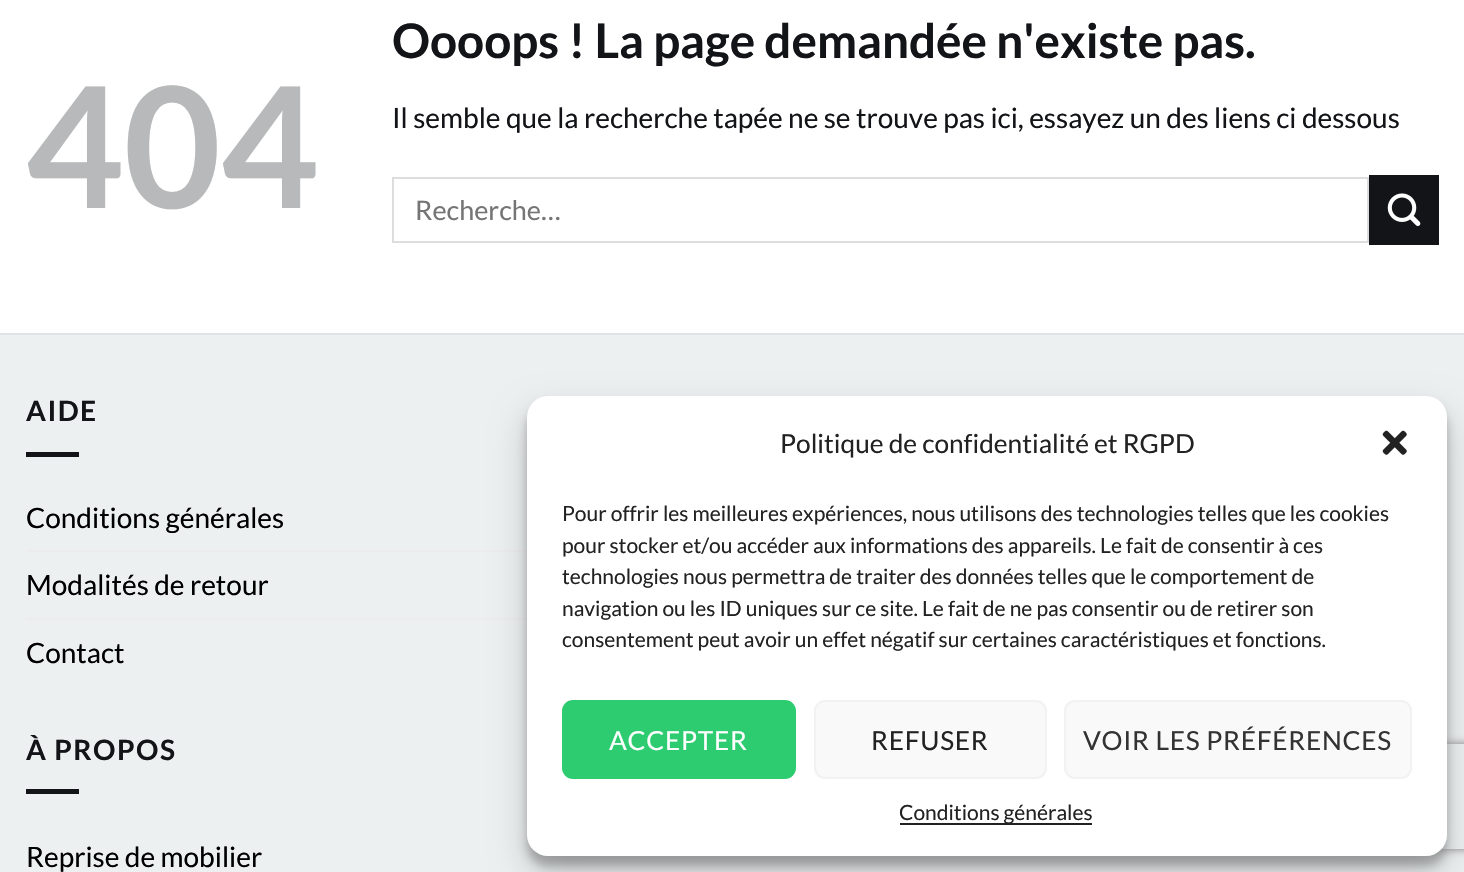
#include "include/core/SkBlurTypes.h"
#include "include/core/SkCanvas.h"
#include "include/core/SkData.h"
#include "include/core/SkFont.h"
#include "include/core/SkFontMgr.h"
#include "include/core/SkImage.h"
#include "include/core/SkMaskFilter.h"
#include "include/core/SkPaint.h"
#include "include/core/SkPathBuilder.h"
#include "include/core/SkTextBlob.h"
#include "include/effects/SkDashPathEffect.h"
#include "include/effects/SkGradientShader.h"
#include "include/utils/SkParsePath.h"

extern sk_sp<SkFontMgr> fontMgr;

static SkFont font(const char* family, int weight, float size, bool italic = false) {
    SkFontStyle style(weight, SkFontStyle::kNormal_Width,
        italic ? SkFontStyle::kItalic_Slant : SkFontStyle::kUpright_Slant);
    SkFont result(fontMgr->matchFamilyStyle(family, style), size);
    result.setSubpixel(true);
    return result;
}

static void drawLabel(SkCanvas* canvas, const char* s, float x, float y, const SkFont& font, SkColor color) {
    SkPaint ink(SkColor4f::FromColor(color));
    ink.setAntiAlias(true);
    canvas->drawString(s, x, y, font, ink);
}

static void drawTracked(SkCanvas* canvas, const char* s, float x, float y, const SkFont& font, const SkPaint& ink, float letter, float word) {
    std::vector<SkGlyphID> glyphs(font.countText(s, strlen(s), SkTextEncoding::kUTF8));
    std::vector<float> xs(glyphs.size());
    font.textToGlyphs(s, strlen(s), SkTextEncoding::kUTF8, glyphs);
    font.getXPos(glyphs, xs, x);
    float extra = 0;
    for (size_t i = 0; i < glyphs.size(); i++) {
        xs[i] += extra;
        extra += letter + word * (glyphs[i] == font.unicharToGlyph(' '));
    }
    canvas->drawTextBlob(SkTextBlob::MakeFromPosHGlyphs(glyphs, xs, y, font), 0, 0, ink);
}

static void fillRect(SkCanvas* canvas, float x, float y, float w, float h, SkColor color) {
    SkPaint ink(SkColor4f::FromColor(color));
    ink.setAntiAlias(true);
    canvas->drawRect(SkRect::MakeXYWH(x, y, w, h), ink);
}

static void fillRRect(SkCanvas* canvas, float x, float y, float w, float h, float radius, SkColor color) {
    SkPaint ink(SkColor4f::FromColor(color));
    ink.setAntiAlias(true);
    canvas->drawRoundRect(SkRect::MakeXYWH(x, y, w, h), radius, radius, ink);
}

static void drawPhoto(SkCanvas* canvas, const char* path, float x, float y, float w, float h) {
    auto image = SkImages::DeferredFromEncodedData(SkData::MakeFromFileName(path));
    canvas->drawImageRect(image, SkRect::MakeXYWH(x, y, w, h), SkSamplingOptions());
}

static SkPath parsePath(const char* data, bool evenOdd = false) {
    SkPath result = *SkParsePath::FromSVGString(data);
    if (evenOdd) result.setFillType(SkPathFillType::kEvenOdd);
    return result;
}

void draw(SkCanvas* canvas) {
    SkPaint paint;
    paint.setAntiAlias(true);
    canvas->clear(0xFFFFFFFF);
    SkFont font1 = font("Lato", 700, 168);
    drawLabel(canvas, "404", 26, 208, font1, 0xFFB8B9BA);
    SkFont font2 = font("Lato", 700, 47.6f);
    drawLabel(canvas, "Oooops ! La page demandée n'existe pas.", 392, 58, font2, 0xFF131418);
    SkFont font3 = font("Lato", 400, 28);
    drawLabel(canvas, "Il semble que la recherche tapée ne se trouve pas ici, essayez un des liens ci dessous", 392, 128, font3, 0xFF131418);
    paint.setStroke(true);
    paint.setStrokeWidth(2);
    paint.setColor(0xFFDDDDDD);
    canvas->drawRect(SkRect::MakeXYWH(393, 178, 975, 64), paint);
    SkFont font4 = font("Lato", 400, 27);
    drawLabel(canvas, "Recherche…", 415, 220, font4, 0xFF757575);
    fillRect(canvas, 1369, 175, 70, 70, 0xFF131418);
    drawPhoto(canvas, "assets/img1.png", 1387, 193, 34, 33);
    fillRect(canvas, 0, 335, 1464, 537, 0xFFECF0F1);
    fillRect(canvas, 0, 333, 1464, 2, 0xFFE0E4E5);
    SkFont font5 = font("Lato", 700, 28);
    paint.setStroke(false);
    paint.setColor(0xFF131418);
    drawTracked(canvas, "AIDE", 26, 421, font5, paint, 1.5f, 0);
    fillRect(canvas, 26, 452, 53, 5, 0xFF131418);
    drawLabel(canvas, "Conditions générales", 26, 528, font3, 0xFF000000);
    fillRect(canvas, 26, 550, 501, 2, 0xFFECECEC);
    drawLabel(canvas, "Modalités de retour", 26, 595, font3, 0xFF000000);
    fillRect(canvas, 26, 618, 501, 2, 0xFFECECEC);
    drawLabel(canvas, "Contact", 26, 663, font3, 0xFF000000);
    drawTracked(canvas, "À PROPOS", 26, 760, font5, paint, 1.5f, 0);
    fillRect(canvas, 26, 789, 53, 5, 0xFF131418);
    drawLabel(canvas, "Reprise de mobilier", 26, 867, font3, 0xFF000000);
    paint.setColor(0x3B000000);
    paint.setMaskFilter(SkMaskFilter::MakeBlur(kNormal_SkBlurStyle, 5));
    canvas->drawRoundRect(SkRect::MakeXYWH(527, 406, 920, 460), 21, 21, paint);
    paint.setMaskFilter(nullptr);
    paint.setColor(0x30000000);
    paint.setMaskFilter(SkMaskFilter::MakeBlur(kNormal_SkBlurStyle, 17.5f));
    canvas->drawRoundRect(SkRect::MakeXYWH(527, 413, 920, 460), 21, 21, paint);
    paint.setMaskFilter(nullptr);
    canvas->save();
    canvas->clipPath(parsePath("M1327 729H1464V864H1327ZM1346 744H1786C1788 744 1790 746 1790 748V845C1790 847 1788 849 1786 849H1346C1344 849 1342 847 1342 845V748C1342 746 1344 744 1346 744Z", true), true);
    paint.setColor(0xFF808080);
    paint.setMaskFilter(SkMaskFilter::MakeBlur(kNormal_SkBlurStyle, 4.5f));
    canvas->drawRoundRect(SkRect::MakeXYWH(1342, 744, 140, 105), 4, 4, paint);
    paint.setMaskFilter(nullptr);
    canvas->restore();
    fillRRect(canvas, 527, 396, 920, 460, 21, 0xFFFFFFFF);
    SkFont font6 = font("Lato", 400, 26.25f);
    drawLabel(canvas, "Politique de confidentialité et RGPD", 780, 453, font6, 0xFF222222);
    drawPhoto(canvas, "assets/img2.png", 1382, 430, 25, 25);
    SkFont font7 = font("Lato", 400, 21);
    drawLabel(canvas, "Pour offrir les meilleures expériences, nous utilisons des technologies telles que les cookies", 562, 521, font7, 0xFF222222);
    drawLabel(canvas, "pour stocker et/ou accéder aux informations des appareils. Le fait de consentir à ces", 562, 553, font7, 0xFF222222);
    drawLabel(canvas, "technologies nous permettra de traiter des données telles que le comportement de", 562, 584, font7, 0xFF222222);
    drawLabel(canvas, "navigation ou les ID uniques sur ce site. Le fait de ne pas consentir ou de retirer son", 562, 616, font7, 0xFF222222);
    drawLabel(canvas, "consentement peut avoir un effet négatif sur certaines caractéristiques et fonctions.", 562, 647, font7, 0xFF222222);
    paint.setColor(0xFF2ECC71);
    canvas->drawRoundRect(SkRect::MakeXYWH(563, 701, 232, 77), 10, 10, paint);
    paint.setStroke(true);
    canvas->drawRoundRect(SkRect::MakeXYWH(563, 701, 232, 77), 10, 10, paint);
    paint.setStroke(false);
    paint.setColor(0xFFFFFFFF);
    drawTracked(canvas, "ACCEPTER", 609, 750, font6, paint, 0.75f, 0);
    paint.setColor(0xFFF9F9F9);
    canvas->drawRoundRect(SkRect::MakeXYWH(815, 701, 231, 77), 10, 10, paint);
    paint.setStroke(true);
    paint.setColor(0xFFF2F2F2);
    canvas->drawRoundRect(SkRect::MakeXYWH(815, 701, 231, 77), 10, 10, paint);
    paint.setStroke(false);
    paint.setColor(0xFF222222);
    drawTracked(canvas, "REFUSER", 871, 750, font6, paint, 0.75f, 0);
    paint.setColor(0xFFF9F9F9);
    canvas->drawRoundRect(SkRect::MakeXYWH(1065, 701, 346, 77), 10, 10, paint);
    paint.setStroke(true);
    paint.setColor(0xFFF2F2F2);
    canvas->drawRoundRect(SkRect::MakeXYWH(1065, 701, 346, 77), 10, 10, paint);
    paint.setStroke(false);
    paint.setColor(0xFF333333);
    drawTracked(canvas, "VOIR LES PRÉFÉRENCES", 1083, 750, font6, paint, 0.75f, 0);
    fillRect(canvas, 900, 823, 192, 2, 0xFF222222);
    drawLabel(canvas, "Conditions générales", 899, 820, font7, 0xFF222222);
}
